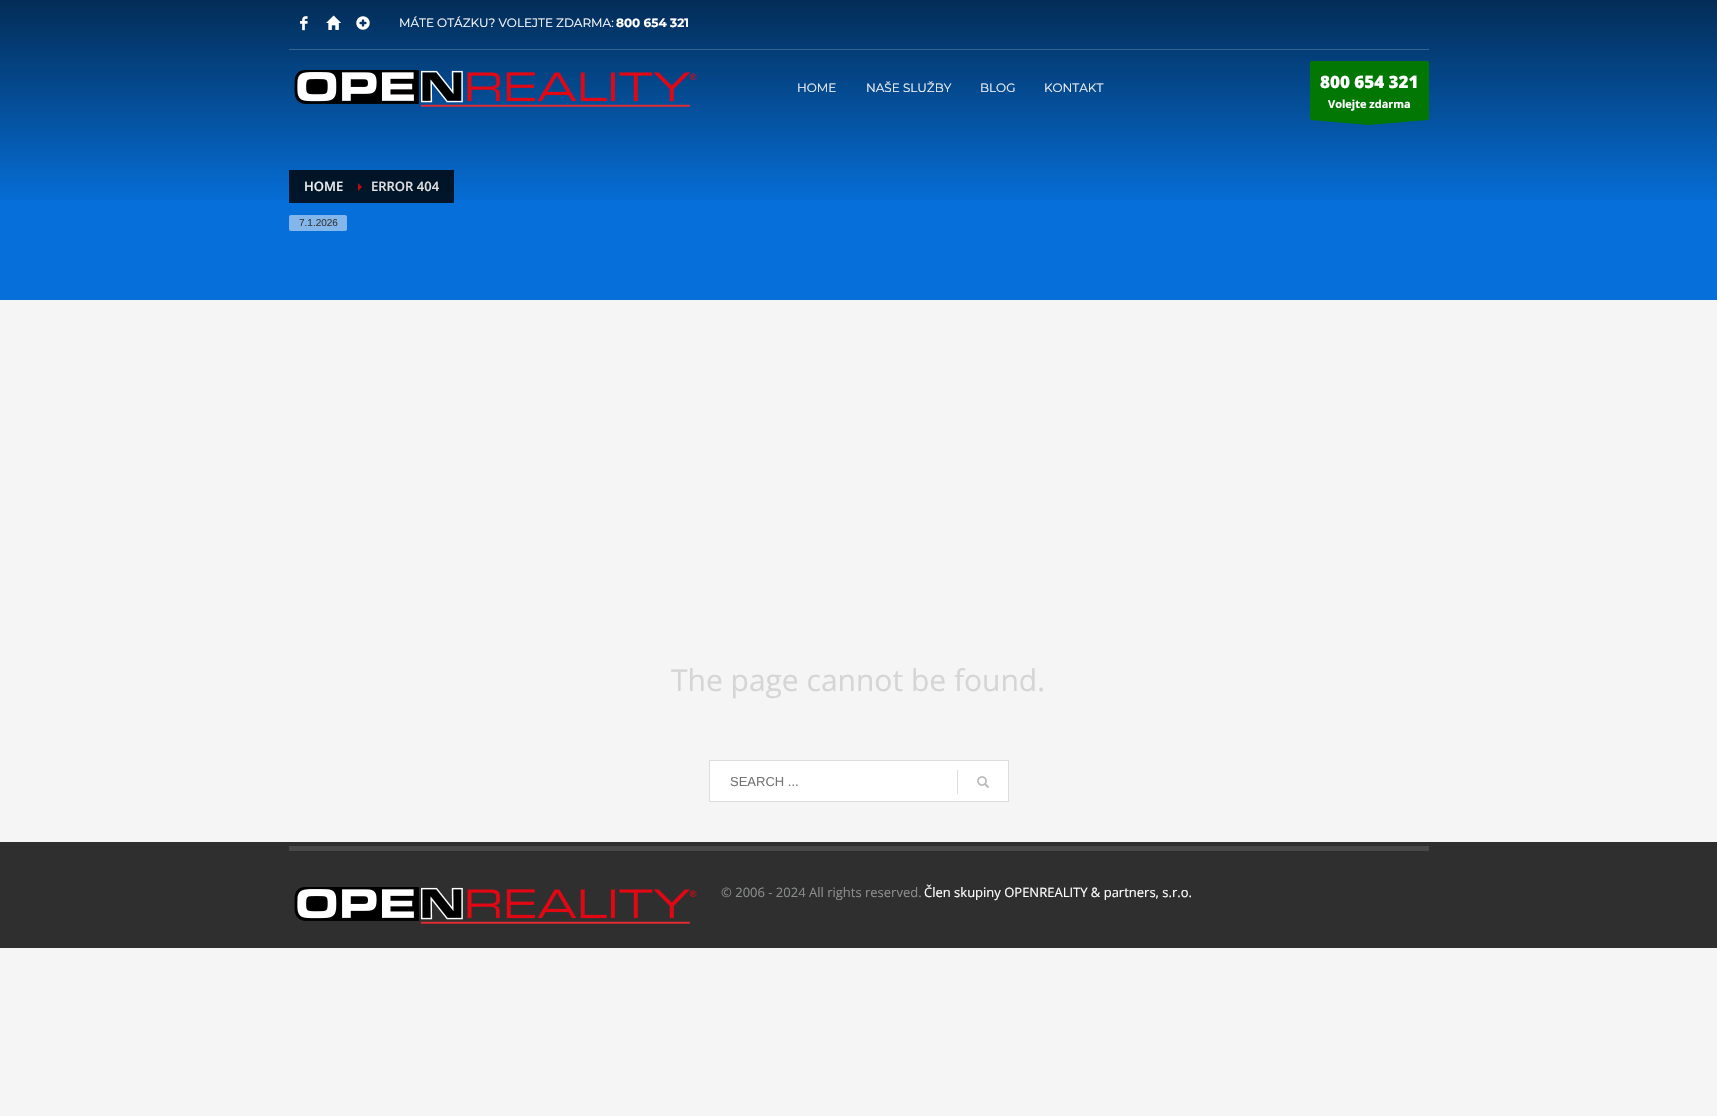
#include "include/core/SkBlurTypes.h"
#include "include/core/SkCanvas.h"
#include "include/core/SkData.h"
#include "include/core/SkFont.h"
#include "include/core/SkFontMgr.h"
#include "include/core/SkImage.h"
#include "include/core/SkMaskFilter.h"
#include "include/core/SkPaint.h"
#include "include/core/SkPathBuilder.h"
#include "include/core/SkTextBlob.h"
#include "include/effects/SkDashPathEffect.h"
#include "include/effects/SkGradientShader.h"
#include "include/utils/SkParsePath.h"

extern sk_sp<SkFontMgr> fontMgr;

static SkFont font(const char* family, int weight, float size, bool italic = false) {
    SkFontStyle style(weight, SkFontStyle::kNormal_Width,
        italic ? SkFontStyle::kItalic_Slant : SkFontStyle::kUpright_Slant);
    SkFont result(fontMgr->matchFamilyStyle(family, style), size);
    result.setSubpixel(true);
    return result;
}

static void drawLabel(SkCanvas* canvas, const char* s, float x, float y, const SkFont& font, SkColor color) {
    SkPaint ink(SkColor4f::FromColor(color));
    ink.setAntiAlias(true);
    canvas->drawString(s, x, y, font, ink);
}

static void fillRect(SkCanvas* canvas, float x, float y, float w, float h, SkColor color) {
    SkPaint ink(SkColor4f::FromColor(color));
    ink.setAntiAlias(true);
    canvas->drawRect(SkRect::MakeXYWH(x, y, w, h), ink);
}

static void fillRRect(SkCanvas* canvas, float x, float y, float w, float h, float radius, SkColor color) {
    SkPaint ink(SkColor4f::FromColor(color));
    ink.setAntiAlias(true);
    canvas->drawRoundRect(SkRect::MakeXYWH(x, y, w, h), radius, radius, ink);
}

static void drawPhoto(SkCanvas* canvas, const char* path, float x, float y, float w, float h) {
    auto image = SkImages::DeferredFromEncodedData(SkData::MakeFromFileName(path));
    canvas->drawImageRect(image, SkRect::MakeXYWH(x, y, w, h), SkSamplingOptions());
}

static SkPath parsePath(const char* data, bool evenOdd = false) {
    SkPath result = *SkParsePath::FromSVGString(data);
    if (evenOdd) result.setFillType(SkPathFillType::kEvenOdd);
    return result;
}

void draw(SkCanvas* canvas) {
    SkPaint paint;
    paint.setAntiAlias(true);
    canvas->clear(0xFFF5F5F5);
    fillRect(canvas, 0, 0, 1717, 300, 0xFF066FD9);
    fillRect(canvas, 289, 170, 165, 33, 0xFF01162B);
    SkFont font1 = font("Open Sans", 600, 13);
    drawLabel(canvas, "HOME", 304, 191, font1, 0xFFFFFFFF);
    paint.setColor(0xFFCC0A0A);
    canvas->drawPath(parsePath("M358 191V183L362 187Z"), paint);
    drawLabel(canvas, "ERROR 404", 371, 191, font1, 0xFFEEEEEE);
    {
        const SkColor colors[] = {0x99000000, 0x00000000};
        const float stops[] = {0, 1};
        const SkPoint ends[] = {{859, 0}, {859, 207}};
        paint.setShader(SkGradientShader::MakeLinear(ends, colors, stops, 2, SkTileMode::kClamp));
        paint.setAlpha(255);
    }
    canvas->drawRect(SkRect::MakeXYWH(0, 0, 1717, 200), paint);
    drawPhoto(canvas, "assets/img1.png", 300, 16, 8, 15);
    drawPhoto(canvas, "assets/img2.png", 326, 15, 15, 15);
    drawPhoto(canvas, "assets/img3.png", 356, 16, 14, 14);
    SkFont font2 = font("Montserrat", 400, 12);
    drawLabel(canvas, "MÁTE OTÁZKU? VOLEJTE ZDARMA:", 399, 27, font2, 0xFFFFFFFF);
    SkFont font3 = font("Montserrat", 700, 12);
    drawLabel(canvas, "800 654 321", 616, 27, font3, 0xFFFFFFFF);
    fillRect(canvas, 289, 49, 1140, 1, 0xFF366392);
    drawPhoto(canvas, "assets/img4.png", 294, 69, 403, 38);
    drawLabel(canvas, "HOME", 797, 92, font2, 0xFFF5F5F5);
    drawLabel(canvas, "NAŠE SLUŽBY", 866, 92, font2, 0xFFF5F5F5);
    drawLabel(canvas, "BLOG", 980, 92, font2, 0xFFF5F5F5);
    drawLabel(canvas, "KONTAKT", 1044, 92, font2, 0xFFF5F5F5);
    fillRRect(canvas, 1310, 61, 119, 59, 2, 0xFF027704);
    SkFont font4 = font("Open Sans", 800, 17);
    drawLabel(canvas, "800 654 321", 1320, 88, font4, 0xFFFFFFFF);
    SkFont font5 = font("Open Sans", 700, 11);
    drawLabel(canvas, "Volejte zdarma", 1328, 108, font5, 0xFFFFFFFF);
    paint.setShader(nullptr);
    paint.setColor(0xFF027704);
    canvas->drawPath(parsePath("M1428 120L1369 125L1310 120Z", true), paint);
    fillRRect(canvas, 289, 215, 58, 16, 2, 0xFF83B7EC);
    SkFont font6 = font("Liberation Sans", 400, 10);
    drawLabel(canvas, "7.1.2026", 299, 226, font6, 0xFF383838);
    SkFont font7 = font("Open Sans", 400, 30);
    drawLabel(canvas, "The page cannot be found.", 671, 691, font7, 0xFFD5D5D5);
    paint.setColor(0xFFFFFFFF);
    canvas->drawRect(SkRect::MakeXYWH(709.5f, 760.5f, 299, 41), paint);
    paint.setStroke(true);
    paint.setStrokeWidth(1);
    paint.setColor(0xFFDDDDDD);
    canvas->drawRect(SkRect::MakeXYWH(709.5f, 760.5f, 299, 41), paint);
    SkFont font8 = font("Liberation Sans", 400, 13);
    drawLabel(canvas, "SEARCH ...", 730, 786, font8, 0xFF757575);
    fillRect(canvas, 957, 770, 1, 24, 0xFFDDDDDD);
    drawPhoto(canvas, "assets/img5.png", 977, 776, 12, 12);
    fillRect(canvas, 0, 842, 1717, 106, 0xFF2F2F2F);
    fillRect(canvas, 289, 846, 1140, 5, 0xFF484848);
    drawPhoto(canvas, "assets/img6.png", 294, 887, 403, 37);
    SkFont font9 = font("Open Sans", 400, 13);
    drawLabel(canvas, "© 2006 - 2024 All rights reserved.", 721, 897, font9, 0xFF8B8C8D);
    drawLabel(canvas, "Člen skupiny OPENREALITY & partners, s.r.o.", 924, 897, font9, 0xFFFFFFFF);
}
